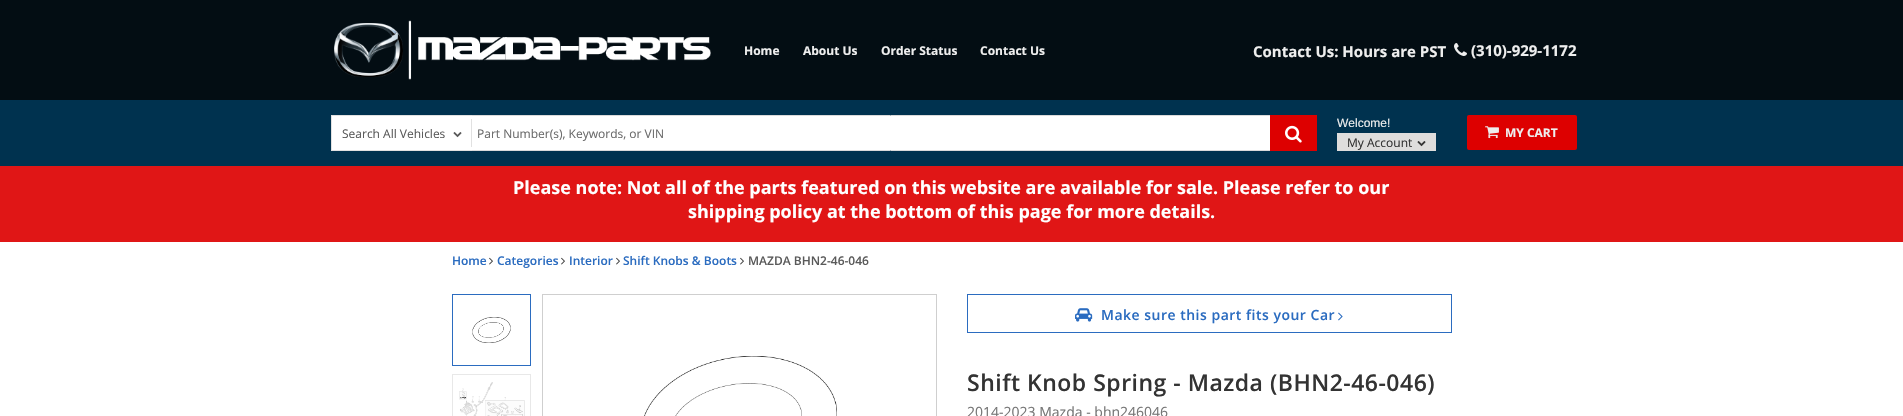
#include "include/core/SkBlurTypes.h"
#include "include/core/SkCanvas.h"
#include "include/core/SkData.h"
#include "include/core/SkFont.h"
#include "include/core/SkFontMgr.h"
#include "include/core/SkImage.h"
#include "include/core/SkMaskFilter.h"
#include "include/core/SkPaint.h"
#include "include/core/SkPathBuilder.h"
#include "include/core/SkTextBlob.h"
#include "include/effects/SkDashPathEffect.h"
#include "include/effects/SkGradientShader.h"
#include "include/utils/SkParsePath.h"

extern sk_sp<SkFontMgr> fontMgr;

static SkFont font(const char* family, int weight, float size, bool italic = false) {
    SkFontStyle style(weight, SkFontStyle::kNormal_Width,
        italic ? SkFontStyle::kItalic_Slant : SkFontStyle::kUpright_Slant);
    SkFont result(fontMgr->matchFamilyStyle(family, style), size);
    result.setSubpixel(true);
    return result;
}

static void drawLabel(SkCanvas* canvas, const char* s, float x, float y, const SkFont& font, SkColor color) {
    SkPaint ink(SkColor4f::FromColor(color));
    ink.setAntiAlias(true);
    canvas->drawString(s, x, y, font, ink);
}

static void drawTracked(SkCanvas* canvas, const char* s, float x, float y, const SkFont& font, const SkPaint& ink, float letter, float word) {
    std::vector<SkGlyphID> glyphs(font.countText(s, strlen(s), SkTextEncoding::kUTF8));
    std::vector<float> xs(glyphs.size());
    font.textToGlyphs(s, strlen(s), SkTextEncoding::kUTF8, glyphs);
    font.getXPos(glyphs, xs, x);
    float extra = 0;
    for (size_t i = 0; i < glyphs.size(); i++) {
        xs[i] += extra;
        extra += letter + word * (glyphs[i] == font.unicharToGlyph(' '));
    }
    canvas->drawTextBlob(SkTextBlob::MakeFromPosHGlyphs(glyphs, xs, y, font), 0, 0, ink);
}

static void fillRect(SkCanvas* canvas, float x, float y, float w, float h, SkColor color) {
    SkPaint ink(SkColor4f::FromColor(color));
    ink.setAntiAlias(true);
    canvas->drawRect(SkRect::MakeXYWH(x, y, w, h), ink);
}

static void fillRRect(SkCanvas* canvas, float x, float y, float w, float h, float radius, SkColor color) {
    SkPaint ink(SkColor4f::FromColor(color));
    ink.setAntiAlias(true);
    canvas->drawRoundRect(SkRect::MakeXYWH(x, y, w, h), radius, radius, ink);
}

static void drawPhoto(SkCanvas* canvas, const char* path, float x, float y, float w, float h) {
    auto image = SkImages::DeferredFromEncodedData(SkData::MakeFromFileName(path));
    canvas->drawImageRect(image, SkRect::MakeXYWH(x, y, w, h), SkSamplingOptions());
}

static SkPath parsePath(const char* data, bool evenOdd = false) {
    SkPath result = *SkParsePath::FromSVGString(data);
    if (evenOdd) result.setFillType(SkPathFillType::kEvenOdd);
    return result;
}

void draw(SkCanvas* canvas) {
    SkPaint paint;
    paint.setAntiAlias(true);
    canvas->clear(0xFFFFFFFF);
    fillRect(canvas, 0, 0, 1903, 100, 0xFF030D13);
    drawPhoto(canvas, "assets/img1.png", 334, 20, 377, 60);
    SkFont font1 = font("Open Sans", 700, 12);
    drawLabel(canvas, "Home", 744, 55, font1, 0xFFEEEEEE);
    drawLabel(canvas, "About Us", 803, 55, font1, 0xFFEEEEEE);
    drawLabel(canvas, "Order Status", 881, 55, font1, 0xFFEEEEEE);
    drawLabel(canvas, "Contact Us", 980, 55, font1, 0xFFEEEEEE);
    SkFont font2 = font("Open Sans", 700, 15);
    drawLabel(canvas, "Contact Us: Hours are PST", 1253, 57, font2, 0xFFEEEEEE);
    drawPhoto(canvas, "assets/img2.png", 1454, 43, 13, 13);
    drawLabel(canvas, "(310)-929-1172", 1471, 56, font2, 0xFFEEEEEE);
    fillRect(canvas, 0, 100, 1903, 66, 0xFF00324F);
    fillRect(canvas, 472, 116, 798, 34, 0xFFFFFFFF);
    paint.setStroke(true);
    paint.setStrokeWidth(1);
    paint.setColor(0xFFDADADA);
    canvas->drawPath(parsePath("M467 116L469 115.5H1312C1313.5 115.5 1314.5 116.5 1314.5 118V143C1314.5 144.5 1315.5 150.5 1312 150.5H469L467 150"), paint);
    fillRect(canvas, 332, 116, 140, 34, 0xFFFFFFFF);
    fillRect(canvas, 331, 115, 141, 1, 0xFFE1E1E1);
    fillRect(canvas, 331, 150, 141, 1, 0xFFE1E1E1);
    fillRect(canvas, 331, 115, 1, 36, 0xFFE1E1E1);
    SkFont font3 = font("Open Sans", 400, 12);
    drawLabel(canvas, "Search All Vehicles", 342, 138, font3, 0xFF5A5A5A);
    drawPhoto(canvas, "assets/img3.png", 453, 132, 9, 6);
    fillRect(canvas, 471, 119, 1, 28, 0xFFE1E1E1);
    drawLabel(canvas, "Part Number(s), Keywords, or VIN", 477, 138, font3, 0xFF6B6B6B);
    fillRect(canvas, 1270, 115, 47, 36, 0xFFDD0000);
    drawPhoto(canvas, "assets/img4.png", 1285, 125, 17, 18);
    SkFont font4 = font("Liberation Sans", 400, 12);
    drawLabel(canvas, "Welcome!", 1337, 127, font4, 0xFFEEEEEE);
    fillRect(canvas, 1337, 133, 99, 18, 0xFFDEDDDC);
    drawLabel(canvas, "My Account", 1347, 147, font3, 0xFF333333);
    drawPhoto(canvas, "assets/img5.png", 1417, 141, 9, 6);
    fillRRect(canvas, 1467, 115, 110, 35, 2, 0xFFDD0000);
    drawPhoto(canvas, "assets/img6.png", 1485, 126, 14, 13);
    drawLabel(canvas, "MY CART", 1505, 137, font1, 0xFFEEEEEE);
    fillRect(canvas, 0, 166, 1903, 76, 0xFFE01616);
    SkFont font5 = font("Open Sans", 700, 18);
    drawLabel(canvas, "Please note: Not all of the parts featured on this website are available for sale. Please refer to our", 513, 194, font5, 0xFFFFFFFF);
    drawLabel(canvas, "shipping policy at the bottom of this page for more details.", 688, 218, font5, 0xFFFFFFFF);
    SkFont font6 = font("Open Sans", 600, 12);
    drawLabel(canvas, "Home", 452, 265, font6, 0xFF2B6CC0);
    drawPhoto(canvas, "assets/img7.png", 489, 257, 4, 8);
    drawLabel(canvas, "Categories", 497, 265, font6, 0xFF2B6CC0);
    drawPhoto(canvas, "assets/img7.png", 561, 257, 4, 8);
    drawLabel(canvas, "Interior", 569, 265, font6, 0xFF2B6CC0);
    drawPhoto(canvas, "assets/img7.png", 616, 257, 4, 8);
    drawLabel(canvas, "Shift Knobs & Boots", 623, 265, font6, 0xFF2B6CC0);
    drawPhoto(canvas, "assets/img7.png", 740, 257, 4, 8);
    drawLabel(canvas, "MAZDA BHN2-46-046", 748, 265, font6, 0xFF5A5A5A);
    paint.setColor(0xFF2B6CC0);
    canvas->drawRect(SkRect::MakeXYWH(452.5f, 294.5f, 78, 71), paint);
    drawPhoto(canvas, "assets/img8.png", 472, 317, 39, 26);
    paint.setColor(0xFFE8E8E8);
    canvas->drawRect(SkRect::MakeXYWH(452.5f, 374.5f, 78, 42), paint);
    drawPhoto(canvas, "assets/img9.png", 459, 382, 66, 34);
    paint.setColor(0xFFCFCFCF);
    canvas->drawRect(SkRect::MakeXYWH(542.5f, 294.5f, 394, 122), paint);
    drawPhoto(canvas, "assets/img10.png", 644, 356, 193, 60);
    paint.setColor(0xFF2B6CC0);
    canvas->drawRect(SkRect::MakeXYWH(967.5f, 294.5f, 484, 38), paint);
    drawPhoto(canvas, "assets/img11.png", 1075, 308, 18, 14);
    SkFont font7 = font("Open Sans", 600, 14);
    paint.setStroke(false);
    drawTracked(canvas, "Make sure this part fits your Car", 1101, 320, font7, paint, 0.5f, 0);
    drawPhoto(canvas, "assets/img12.png", 1338, 312, 5, 9);
    SkFont font8 = font("Open Sans", 600, 23);
    paint.setColor(0xFF333333);
    drawTracked(canvas, "Shift Knob Spring - Mazda (BHN2-46-046)", 967, 391, font8, paint, 0.5f, 0);
    SkFont font9 = font("Open Sans", 400, 14);
    drawLabel(canvas, "2014-2023 Mazda - bhn246046", 967, 417, font9, 0xFF757575);
}
